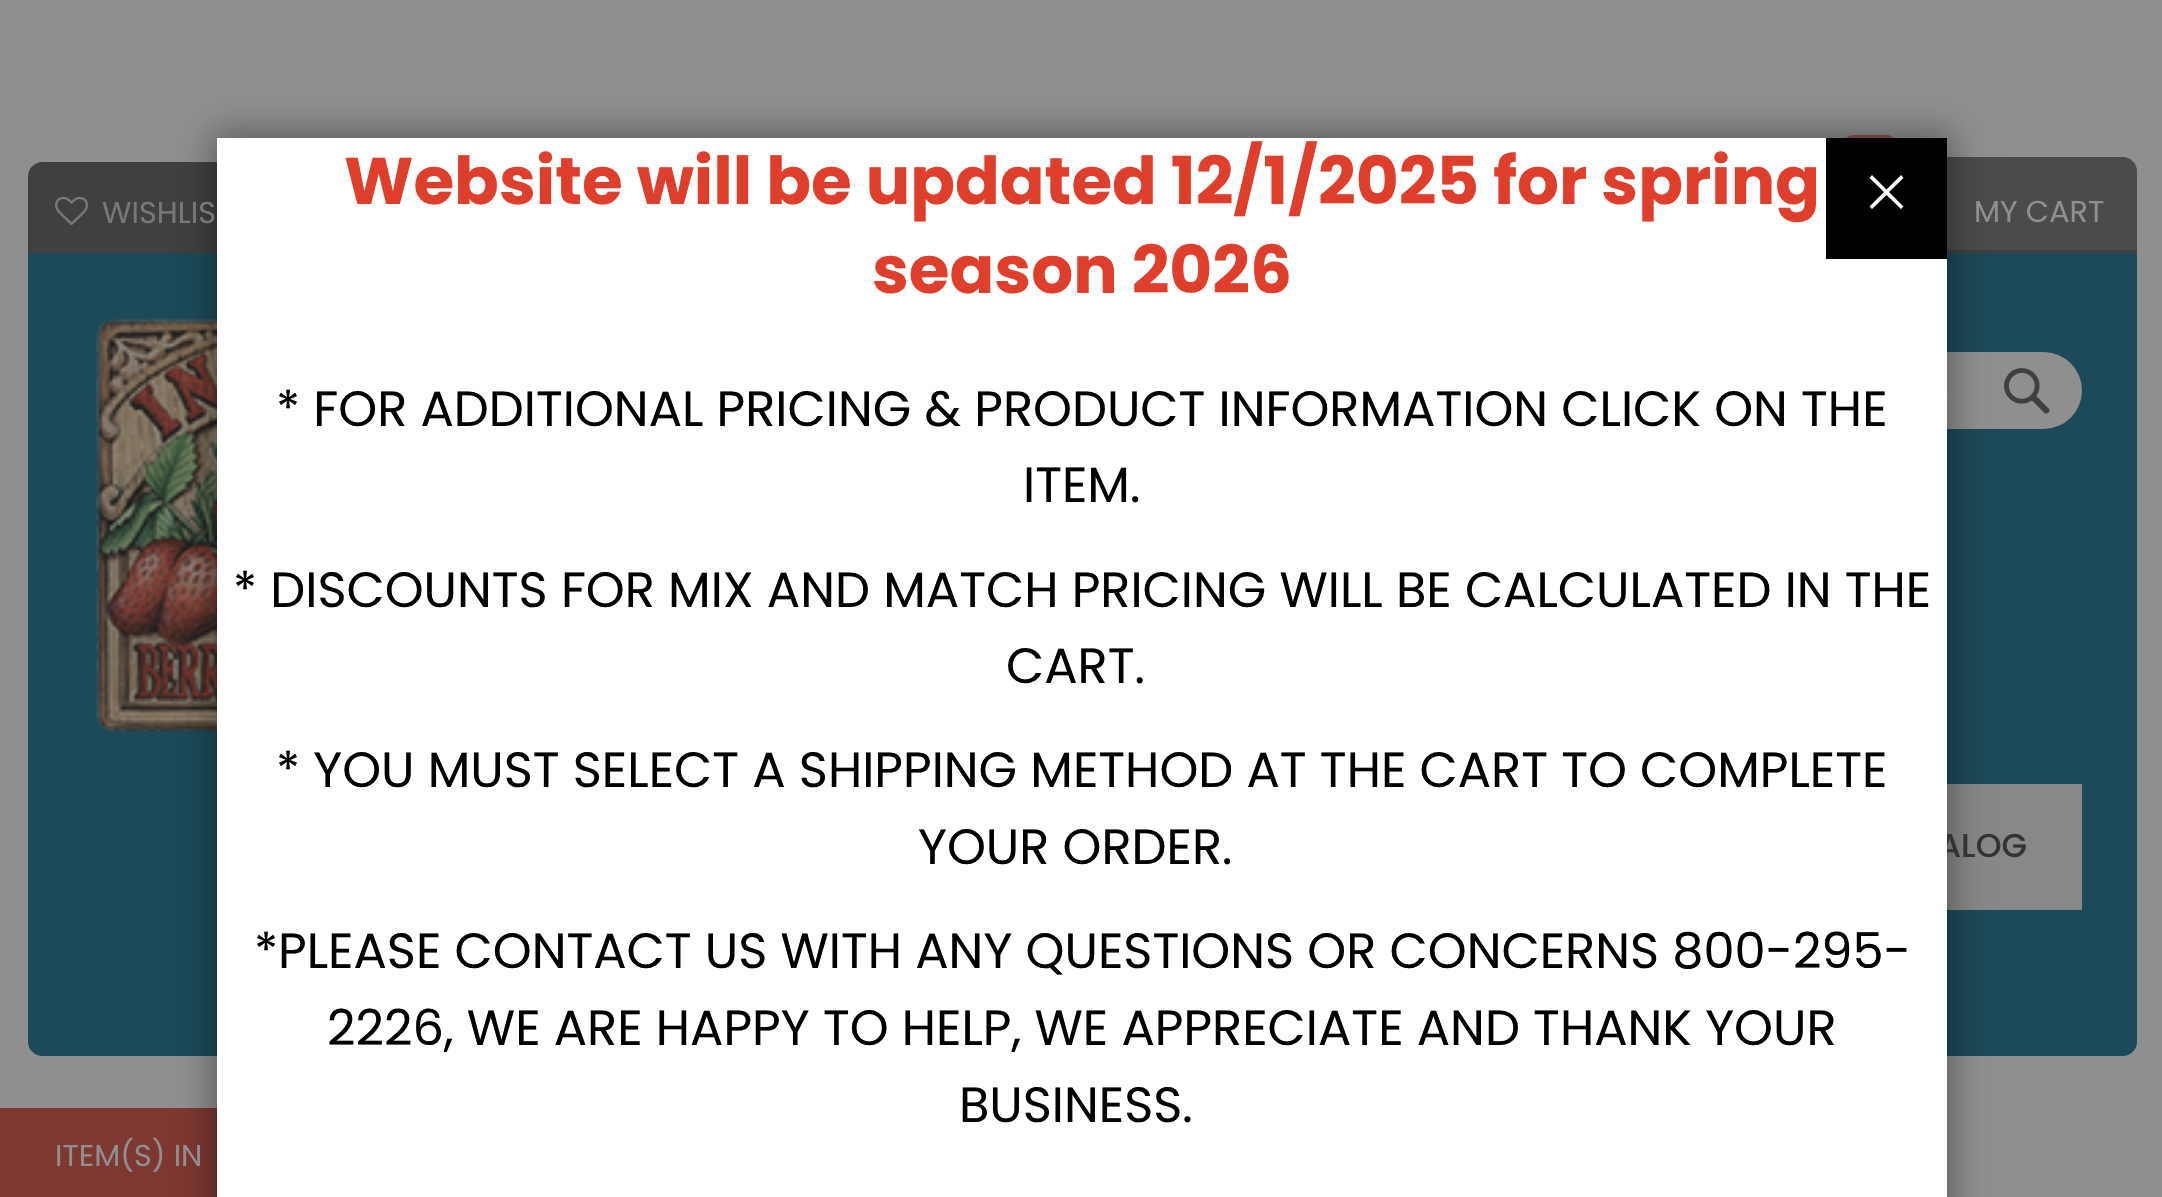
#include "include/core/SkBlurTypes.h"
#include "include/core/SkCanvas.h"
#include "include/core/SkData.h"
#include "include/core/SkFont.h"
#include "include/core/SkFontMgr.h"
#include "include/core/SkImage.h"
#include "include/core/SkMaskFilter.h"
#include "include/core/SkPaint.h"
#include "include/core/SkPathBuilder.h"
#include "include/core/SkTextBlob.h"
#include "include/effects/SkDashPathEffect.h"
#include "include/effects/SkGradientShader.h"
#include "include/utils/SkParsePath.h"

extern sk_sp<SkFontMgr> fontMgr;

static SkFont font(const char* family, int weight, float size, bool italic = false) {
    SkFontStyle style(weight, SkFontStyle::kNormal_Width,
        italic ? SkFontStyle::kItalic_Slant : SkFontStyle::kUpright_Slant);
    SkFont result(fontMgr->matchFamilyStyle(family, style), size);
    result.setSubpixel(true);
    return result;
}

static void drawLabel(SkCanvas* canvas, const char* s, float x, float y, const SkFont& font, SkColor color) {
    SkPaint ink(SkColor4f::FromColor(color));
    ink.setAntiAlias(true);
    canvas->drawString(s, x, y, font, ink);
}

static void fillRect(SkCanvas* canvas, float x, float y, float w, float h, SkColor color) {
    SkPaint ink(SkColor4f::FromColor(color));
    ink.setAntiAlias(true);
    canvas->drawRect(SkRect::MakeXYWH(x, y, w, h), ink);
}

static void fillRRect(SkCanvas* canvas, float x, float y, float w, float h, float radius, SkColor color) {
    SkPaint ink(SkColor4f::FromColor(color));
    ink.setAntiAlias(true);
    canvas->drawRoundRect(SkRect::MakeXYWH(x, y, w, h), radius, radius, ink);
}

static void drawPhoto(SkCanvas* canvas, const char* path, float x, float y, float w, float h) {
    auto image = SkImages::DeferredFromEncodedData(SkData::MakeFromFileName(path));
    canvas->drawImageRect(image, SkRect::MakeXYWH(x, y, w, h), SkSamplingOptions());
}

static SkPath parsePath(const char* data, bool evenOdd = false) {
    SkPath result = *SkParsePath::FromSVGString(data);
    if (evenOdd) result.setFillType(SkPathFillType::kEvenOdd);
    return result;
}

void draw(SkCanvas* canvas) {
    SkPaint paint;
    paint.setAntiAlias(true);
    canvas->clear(0xFF8F8F8F);
    paint.setColor(0xFF404041);
    canvas->drawPath(parsePath("M42 162H2123C2130.5 162 2137 168.5 2137 176V253H28V176C28 168.5 34.5 162 42 162Z"), paint);
    paint.setColor(0xFF4A4B4D);
    canvas->drawPath(parsePath("M1865 157H2123C2130.5 157 2137 163.5 2137 171V250H1865Z"), paint);
    fillRRect(canvas, 1845, 135, 50, 49, 8, 0xFF8D4E4E);
    paint.setColor(0xFF1C4A58);
    canvas->drawPath(parsePath("M28 253H2137V1042C2137 1049.5 2130.5 1056 2123 1056H42C34.5 1056 28 1049.5 28 1042Z"), paint);
    drawPhoto(canvas, "assets/img2.png", 95, 318, 122, 414);
    fillRRect(canvas, 1202, 352, 880, 77, 38.5f, 0xFF8F8F8F);
    fillRect(canvas, 1947, 784, 135, 126, 0xFF888888);
    fillRect(canvas, 0, 1108, 217, 89, 0xFF7E3731);
    paint.setColor(0x59000000);
    paint.setMaskFilter(SkMaskFilter::MakeBlur(kNormal_SkBlurStyle, 16.5f));
    canvas->drawRect(SkRect::MakeXYWH(212, 132, 1741, 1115), paint);
    paint.setMaskFilter(nullptr);
    SkFont font1 = font("Poppins", 400, 28);
    drawLabel(canvas, ".", 1946, 399, font1, 0xFF787878);
    SkFont font2 = font("Poppins", 500, 33);
    drawLabel(canvas, "ALOG", 1938, 857, font2, 0xFF333333);
    fillRect(canvas, 217, 138, 1730, 1059, 0xFFFFFFFF);
    fillRect(canvas, 1826, 138, 121, 121, 0xFF000000);
    paint.setColor(0xFFFFFFFF);
    canvas->drawPath(parsePath("M1903.5 178L1901 175L1886.5 189.5L1872 175L1869.5 178L1884 192L1869.5 206.5L1872 209L1886.5 195L1901 209L1903.5 206.5L1889 192Z"), paint);
    SkFont font3 = font("Poppins", 700, 66);
    drawLabel(canvas, "Website will be updated 12/1/2025 for spring", 344, 204, font3, 0xFFE03E2D);
    drawLabel(canvas, "season 2026", 872, 293, font3, 0xFFE03E2D);
    SkFont font4 = font("Poppins", 400, 49.5f);
    drawLabel(canvas, "* FOR ADDITIONAL PRICING & PRODUCT INFORMATION CLICK ON THE", 276, 426, font4, 0xFF000000);
    drawLabel(canvas, "ITEM.", 1023, 502, font4, 0xFF000000);
    drawLabel(canvas, "* DISCOUNTS FOR MIX AND MATCH PRICING WILL BE CALCULATED IN THE", 233, 607, font4, 0xFF000000);
    drawLabel(canvas, "CART.", 1006, 683, font4, 0xFF000000);
    drawLabel(canvas, "* YOU MUST SELECT A SHIPPING METHOD AT THE CART TO COMPLETE", 276, 787, font4, 0xFF000000);
    drawLabel(canvas, "YOUR ORDER.", 918, 864, font4, 0xFF000000);
    drawLabel(canvas, "*PLEASE CONTACT US WITH ANY QUESTIONS OR CONCERNS 800-295-", 254, 968, font4, 0xFF000000);
    drawLabel(canvas, "2226, WE ARE HAPPY TO HELP, WE APPRECIATE AND THANK YOUR", 327, 1045, font4, 0xFF000000);
    drawLabel(canvas, "BUSINESS.", 959, 1122, font4, 0xFF000000);
    drawPhoto(canvas, "assets/img1.png", 55, 196, 33, 30);
    SkFont font5 = font("Poppins", 400, 30.25f);
    drawLabel(canvas, "WISHLIS", 102, 223, font5, 0xFF787878);
    drawLabel(canvas, "MY CART", 1974, 222, font5, 0xFF8F8F8F);
    drawPhoto(canvas, "assets/img3.png", 2004, 368, 46, 46);
    drawLabel(canvas, "ITEM(S) IN", 55, 1166, font5, 0xFF8F8F8F);
}
